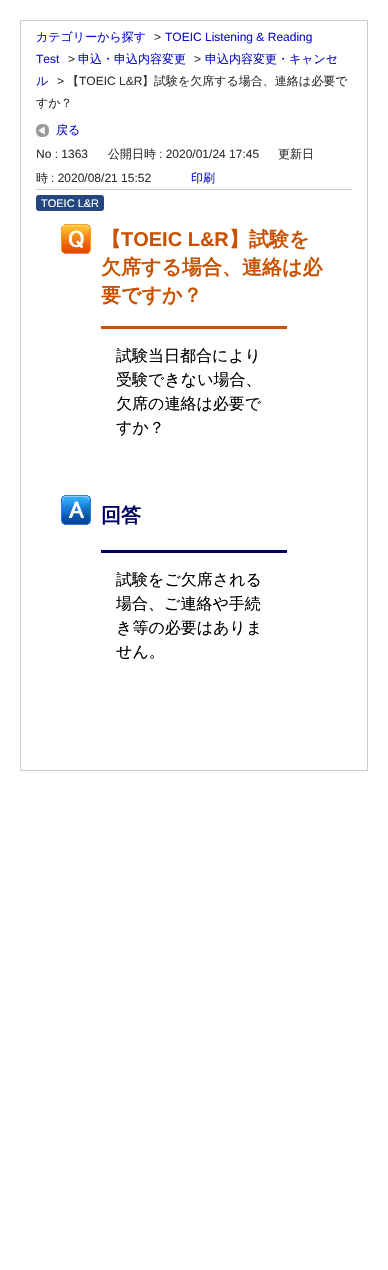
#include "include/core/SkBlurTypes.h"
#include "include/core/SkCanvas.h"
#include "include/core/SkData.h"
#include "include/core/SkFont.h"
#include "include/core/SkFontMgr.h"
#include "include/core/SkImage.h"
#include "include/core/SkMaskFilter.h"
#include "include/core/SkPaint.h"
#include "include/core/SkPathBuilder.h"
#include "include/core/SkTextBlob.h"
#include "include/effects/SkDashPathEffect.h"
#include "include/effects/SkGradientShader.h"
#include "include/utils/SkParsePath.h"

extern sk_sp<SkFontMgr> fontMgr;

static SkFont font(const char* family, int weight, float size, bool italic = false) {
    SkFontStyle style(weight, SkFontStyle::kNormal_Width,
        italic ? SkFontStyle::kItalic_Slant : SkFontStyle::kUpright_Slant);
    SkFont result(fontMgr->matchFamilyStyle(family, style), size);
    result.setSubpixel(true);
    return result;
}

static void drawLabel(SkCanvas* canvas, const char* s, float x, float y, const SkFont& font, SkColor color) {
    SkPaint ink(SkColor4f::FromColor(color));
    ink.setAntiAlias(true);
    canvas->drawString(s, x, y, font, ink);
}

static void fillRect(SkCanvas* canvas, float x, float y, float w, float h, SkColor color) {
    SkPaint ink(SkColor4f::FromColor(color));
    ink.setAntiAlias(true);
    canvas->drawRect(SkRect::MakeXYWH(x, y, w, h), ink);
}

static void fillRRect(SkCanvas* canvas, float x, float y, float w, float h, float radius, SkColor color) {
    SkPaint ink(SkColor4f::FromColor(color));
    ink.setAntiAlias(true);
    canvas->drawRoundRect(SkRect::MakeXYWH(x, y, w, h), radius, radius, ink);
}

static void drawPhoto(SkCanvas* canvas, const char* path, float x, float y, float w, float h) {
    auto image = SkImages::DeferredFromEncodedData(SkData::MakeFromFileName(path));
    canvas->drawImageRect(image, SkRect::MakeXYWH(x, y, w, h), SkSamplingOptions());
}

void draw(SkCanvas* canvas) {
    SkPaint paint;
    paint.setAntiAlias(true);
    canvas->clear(0xFFFFFFFF);
    paint.setStroke(true);
    paint.setStrokeWidth(1);
    paint.setColor(0xFFCCCCCC);
    canvas->drawRect(SkRect::MakeXYWH(20.5f, 20.5f, 347, 750), paint);
    SkFont font1 = font("WenQuanYi Zen Hei", 500, 12);
    drawLabel(canvas, "カテゴリーから探す", 36, 41, font1, 0xFF1111CC);
    SkFont font2 = font("Liberation Sans", 400, 12);
    drawLabel(canvas, ">", 154, 41, font2, 0xFF333333);
    drawLabel(canvas, "TOEIC Listening & Reading", 165, 41, font2, 0xFF1111CC);
    drawLabel(canvas, "Test", 36, 63, font2, 0xFF1111CC);
    drawLabel(canvas, ">", 68, 63, font2, 0xFF333333);
    drawLabel(canvas, "申込・申込内容変更", 78, 63, font1, 0xFF1111CC);
    drawLabel(canvas, ">", 194, 63, font2, 0xFF333333);
    drawLabel(canvas, "申込内容変更・キャンセ", 205, 63, font1, 0xFF1111CC);
    drawLabel(canvas, "ル", 36, 85, font1, 0xFF1111CC);
    drawLabel(canvas, ">", 57, 85, font2, 0xFF333333);
    drawLabel(canvas, "【", 67, 85, font1, 0xFF333333);
    drawLabel(canvas, "TOEIC L&R", 79, 85, font2, 0xFF333333);
    drawLabel(canvas, "】試験を欠席する場合、連絡は必要で", 142, 85, font1, 0xFF333333);
    drawLabel(canvas, "すか？", 36, 107, font1, 0xFF333333);
    fillRect(canvas, 36, 189, 316, 1, 0xFFCCCCCC);
    drawPhoto(canvas, "assets/img1.png", 36, 124, 13, 13);
    drawLabel(canvas, "戻る", 56, 134, font1, 0xFF1111CC);
    drawLabel(canvas, "No : 1363", 36, 158, font2, 0xFF333333);
    drawLabel(canvas, "公開日時", 108, 158, font1, 0xFF333333);
    drawLabel(canvas, ": 2020/01/24 17:45", 159, 158, font2, 0xFF333333);
    drawLabel(canvas, "更新日", 278, 158, font1, 0xFF333333);
    drawLabel(canvas, "時", 36, 182, font1, 0xFF333333);
    drawLabel(canvas, ": 2020/08/21 15:52", 51, 182, font2, 0xFF333333);
    drawLabel(canvas, "印刷", 191, 182, font1, 0xFF1111CC);
    fillRRect(canvas, 36, 195, 68, 16, 3, 0xFF23477E);
    SkFont font3 = font("Liberation Sans", 400, 11);
    drawLabel(canvas, "TOEIC L&R", 41, 207, font3, 0xFFFFFFFF);
    drawPhoto(canvas, "assets/img2.png", 61, 224, 30, 30);
    SkFont font4 = font("WenQuanYi Zen Hei", 700, 20);
    drawLabel(canvas, "【", 101, 246, font4, 0xFFC95100);
    SkFont font5 = font("Liberation Sans", 700, 20);
    drawLabel(canvas, "TOEIC L&R", 121, 246, font5, 0xFFC95100);
    drawLabel(canvas, "】試験を", 229, 246, font4, 0xFFC95100);
    drawLabel(canvas, "欠席する場合、連絡は必", 101, 274, font4, 0xFFC95100);
    drawLabel(canvas, "要ですか？", 101, 302, font4, 0xFFC95100);
    fillRect(canvas, 101, 326, 186, 3, 0xFFC95100);
    SkFont font6 = font("WenQuanYi Zen Hei", 500, 16);
    drawLabel(canvas, "試験当日都合により", 116, 361, font6, 0xFF000000);
    drawLabel(canvas, "受験できない場合、", 116, 385, font6, 0xFF000000);
    drawLabel(canvas, "欠席の連絡は必要で", 116, 409, font6, 0xFF000000);
    drawLabel(canvas, "すか？", 116, 433, font6, 0xFF000000);
    drawPhoto(canvas, "assets/img3.png", 61, 495, 30, 30);
    drawLabel(canvas, "回答", 101, 522, font4, 0xFF000064);
    fillRect(canvas, 101, 550, 186, 3, 0xFF000064);
    drawLabel(canvas, "試験をご欠席される", 116, 585, font6, 0xFF000000);
    drawLabel(canvas, "場合、ご連絡や手続", 116, 609, font6, 0xFF000000);
    drawLabel(canvas, "き等の必要はありま", 116, 633, font6, 0xFF000000);
    drawLabel(canvas, "せん。", 116, 657, font6, 0xFF000000);
}
